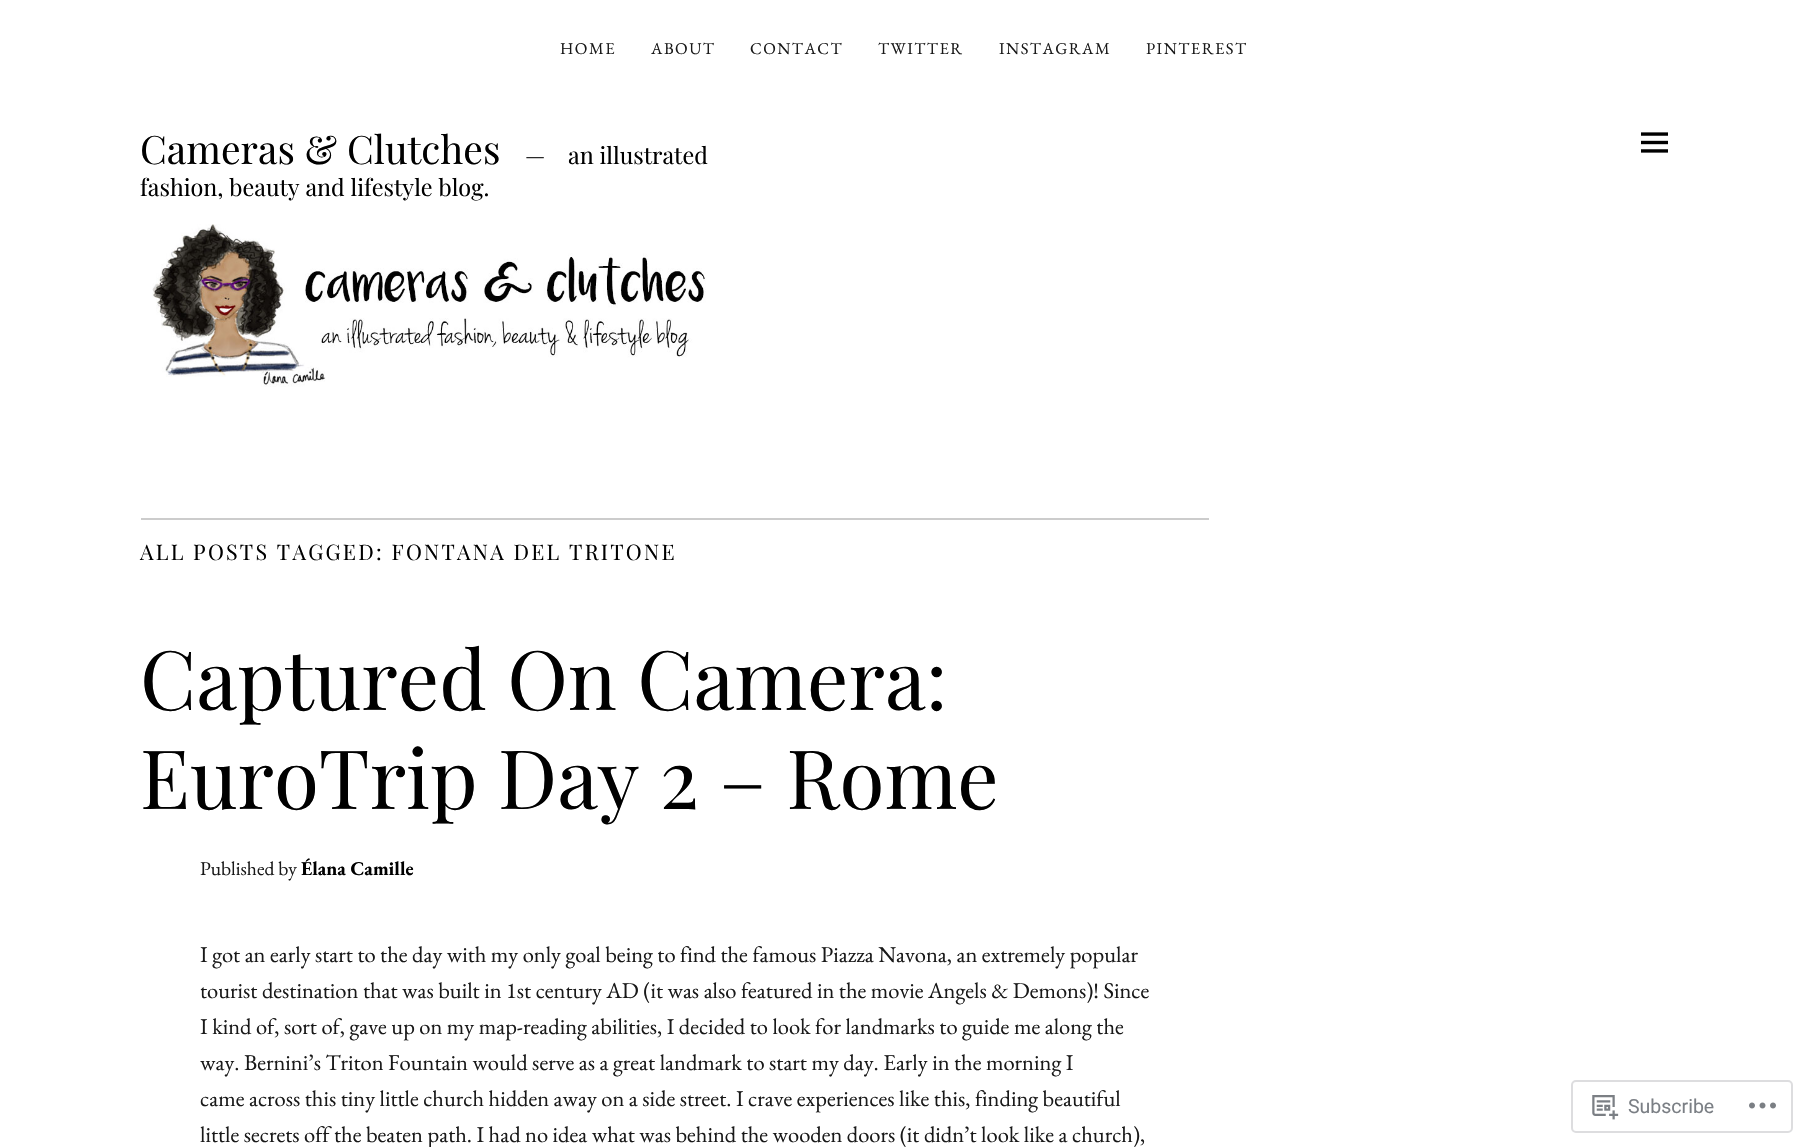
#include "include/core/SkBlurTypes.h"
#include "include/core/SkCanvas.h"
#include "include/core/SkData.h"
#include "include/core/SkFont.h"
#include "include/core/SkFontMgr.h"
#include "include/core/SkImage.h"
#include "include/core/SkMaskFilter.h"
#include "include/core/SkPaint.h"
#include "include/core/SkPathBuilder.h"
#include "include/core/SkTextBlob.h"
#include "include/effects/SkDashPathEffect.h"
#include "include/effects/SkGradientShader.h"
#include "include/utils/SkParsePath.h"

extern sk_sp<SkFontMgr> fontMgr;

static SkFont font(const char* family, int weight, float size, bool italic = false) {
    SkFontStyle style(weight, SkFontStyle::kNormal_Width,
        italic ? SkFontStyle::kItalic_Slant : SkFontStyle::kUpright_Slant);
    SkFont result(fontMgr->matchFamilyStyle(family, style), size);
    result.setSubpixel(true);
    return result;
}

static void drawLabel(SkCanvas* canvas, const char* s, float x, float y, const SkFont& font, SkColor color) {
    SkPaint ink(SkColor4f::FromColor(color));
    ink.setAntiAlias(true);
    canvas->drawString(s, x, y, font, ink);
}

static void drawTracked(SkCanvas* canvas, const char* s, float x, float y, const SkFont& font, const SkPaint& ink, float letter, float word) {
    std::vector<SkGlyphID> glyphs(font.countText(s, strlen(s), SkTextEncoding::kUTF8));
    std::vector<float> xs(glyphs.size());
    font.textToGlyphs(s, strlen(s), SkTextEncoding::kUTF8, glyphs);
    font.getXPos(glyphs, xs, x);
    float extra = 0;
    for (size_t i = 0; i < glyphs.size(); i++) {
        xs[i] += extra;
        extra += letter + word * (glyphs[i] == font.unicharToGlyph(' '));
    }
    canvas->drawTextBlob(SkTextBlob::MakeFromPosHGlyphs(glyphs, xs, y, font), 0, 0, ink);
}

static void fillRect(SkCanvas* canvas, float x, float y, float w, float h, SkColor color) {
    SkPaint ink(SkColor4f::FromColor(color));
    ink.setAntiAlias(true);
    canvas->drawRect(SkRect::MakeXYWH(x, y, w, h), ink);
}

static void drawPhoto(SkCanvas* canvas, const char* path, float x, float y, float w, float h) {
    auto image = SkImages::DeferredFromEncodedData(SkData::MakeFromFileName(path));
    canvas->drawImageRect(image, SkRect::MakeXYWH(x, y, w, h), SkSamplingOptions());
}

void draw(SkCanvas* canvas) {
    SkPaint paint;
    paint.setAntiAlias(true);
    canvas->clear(0xFFFFFFFF);
    SkFont font1 = font("EB Garamond", 400, 16.5f);
    paint.setColor(0xFF191919);
    drawTracked(canvas, "HOME", 560, 54, font1, paint, 1.5f, 0);
    drawTracked(canvas, "ABOUT", 651, 54, font1, paint, 1.5f, 0);
    drawTracked(canvas, "CONTACT", 750, 54, font1, paint, 1.5f, 0);
    drawTracked(canvas, "TWITTER", 878, 54, font1, paint, 1.5f, 0);
    drawTracked(canvas, "INSTAGRAM", 999, 54, font1, paint, 1.5f, 0);
    drawTracked(canvas, "PINTEREST", 1146, 54, font1, paint, 1.5f, 0);
    SkFont font2 = font("Playfair Display", 400, 39);
    drawLabel(canvas, "Cameras & Clutches", 140, 164, font2, 0xFF000000);
    SkFont font3 = font("Playfair Display", 400, 23.4f);
    drawLabel(canvas, "—", 525, 164, font3, 0xFF000000);
    drawLabel(canvas, "an illustrated", 568, 164, font3, 0xFF000000);
    drawLabel(canvas, "fashion, beauty and lifestyle blog.", 140, 196, font3, 0xFF000000);
    drawPhoto(canvas, "assets/img1.png", 152, 224, 554, 163);
    drawPhoto(canvas, "assets/img2.png", 1641, 132, 27, 21);
    fillRect(canvas, 141, 518, 1068, 2, 0xFFCCCCCC);
    SkFont font4 = font("Playfair Display", 400, 21.45f);
    paint.setColor(0xFF000000);
    drawTracked(canvas, "ALL POSTS TAGGED: FONTANA DEL TRITONE", 140, 560, font4, paint, 2.25f, 0);
    SkFont font5 = font("Playfair Display", 400, 81.9f);
    drawLabel(canvas, "Captured On Camera:", 140, 710, font5, 0xFF000000);
    drawLabel(canvas, "EuroTrip Day 2 – Rome", 140, 809, font5, 0xFF000000);
    SkFont font6 = font("EB Garamond", 400, 19.5f);
    drawLabel(canvas, "Published by", 200, 875, font6, 0xFF191919);
    SkFont font7 = font("EB Garamond", 700, 19.5f);
    drawLabel(canvas, "Élana Camille", 301, 875, font7, 0xFF000000);
    SkFont font8 = font("EB Garamond", 400, 22.5f);
    drawLabel(canvas, "I got an early start to the day with my only goal being to find the famous Piazza Navona, an extremely popular", 200, 962, font8, 0xFF191919);
    drawLabel(canvas, "tourist destination that was built in 1st century AD (it was also featured in the movie Angels & Demons)! Since", 200, 998, font8, 0xFF191919);
    drawLabel(canvas, "I kind of, sort of, gave up on my map-reading abilities, I decided to look for landmarks to guide me along the", 200, 1034, font8, 0xFF191919);
    drawLabel(canvas, "way. Bernini’s Triton Fountain would serve as a great landmark to start my day. Early in the morning I", 200, 1070, font8, 0xFF191919);
    drawLabel(canvas, "came across this tiny little church hidden away on a side street. I crave experiences like this, finding beautiful", 200, 1106, font8, 0xFF191919);
    drawLabel(canvas, "little secrets off the beaten path. I had no idea what was behind the wooden doors (it didn’t look like a church),", 200, 1142, font8, 0xFF191919);
    paint.setStroke(true);
    paint.setStrokeWidth(2);
    paint.setColor(0xFFDDDDDF);
    canvas->drawRoundRect(SkRect::MakeXYWH(1572, 1081, 220, 51), 4, 4, paint);
    drawPhoto(canvas, "assets/img3.png", 1592, 1095, 27, 25);
    SkFont font9 = font("Roboto", 400, 19.5f);
    drawLabel(canvas, "Subscribe", 1628, 1113, font9, 0xFF7B7F85);
    drawPhoto(canvas, "assets/img4.png", 1749, 1102, 27, 7);
}
